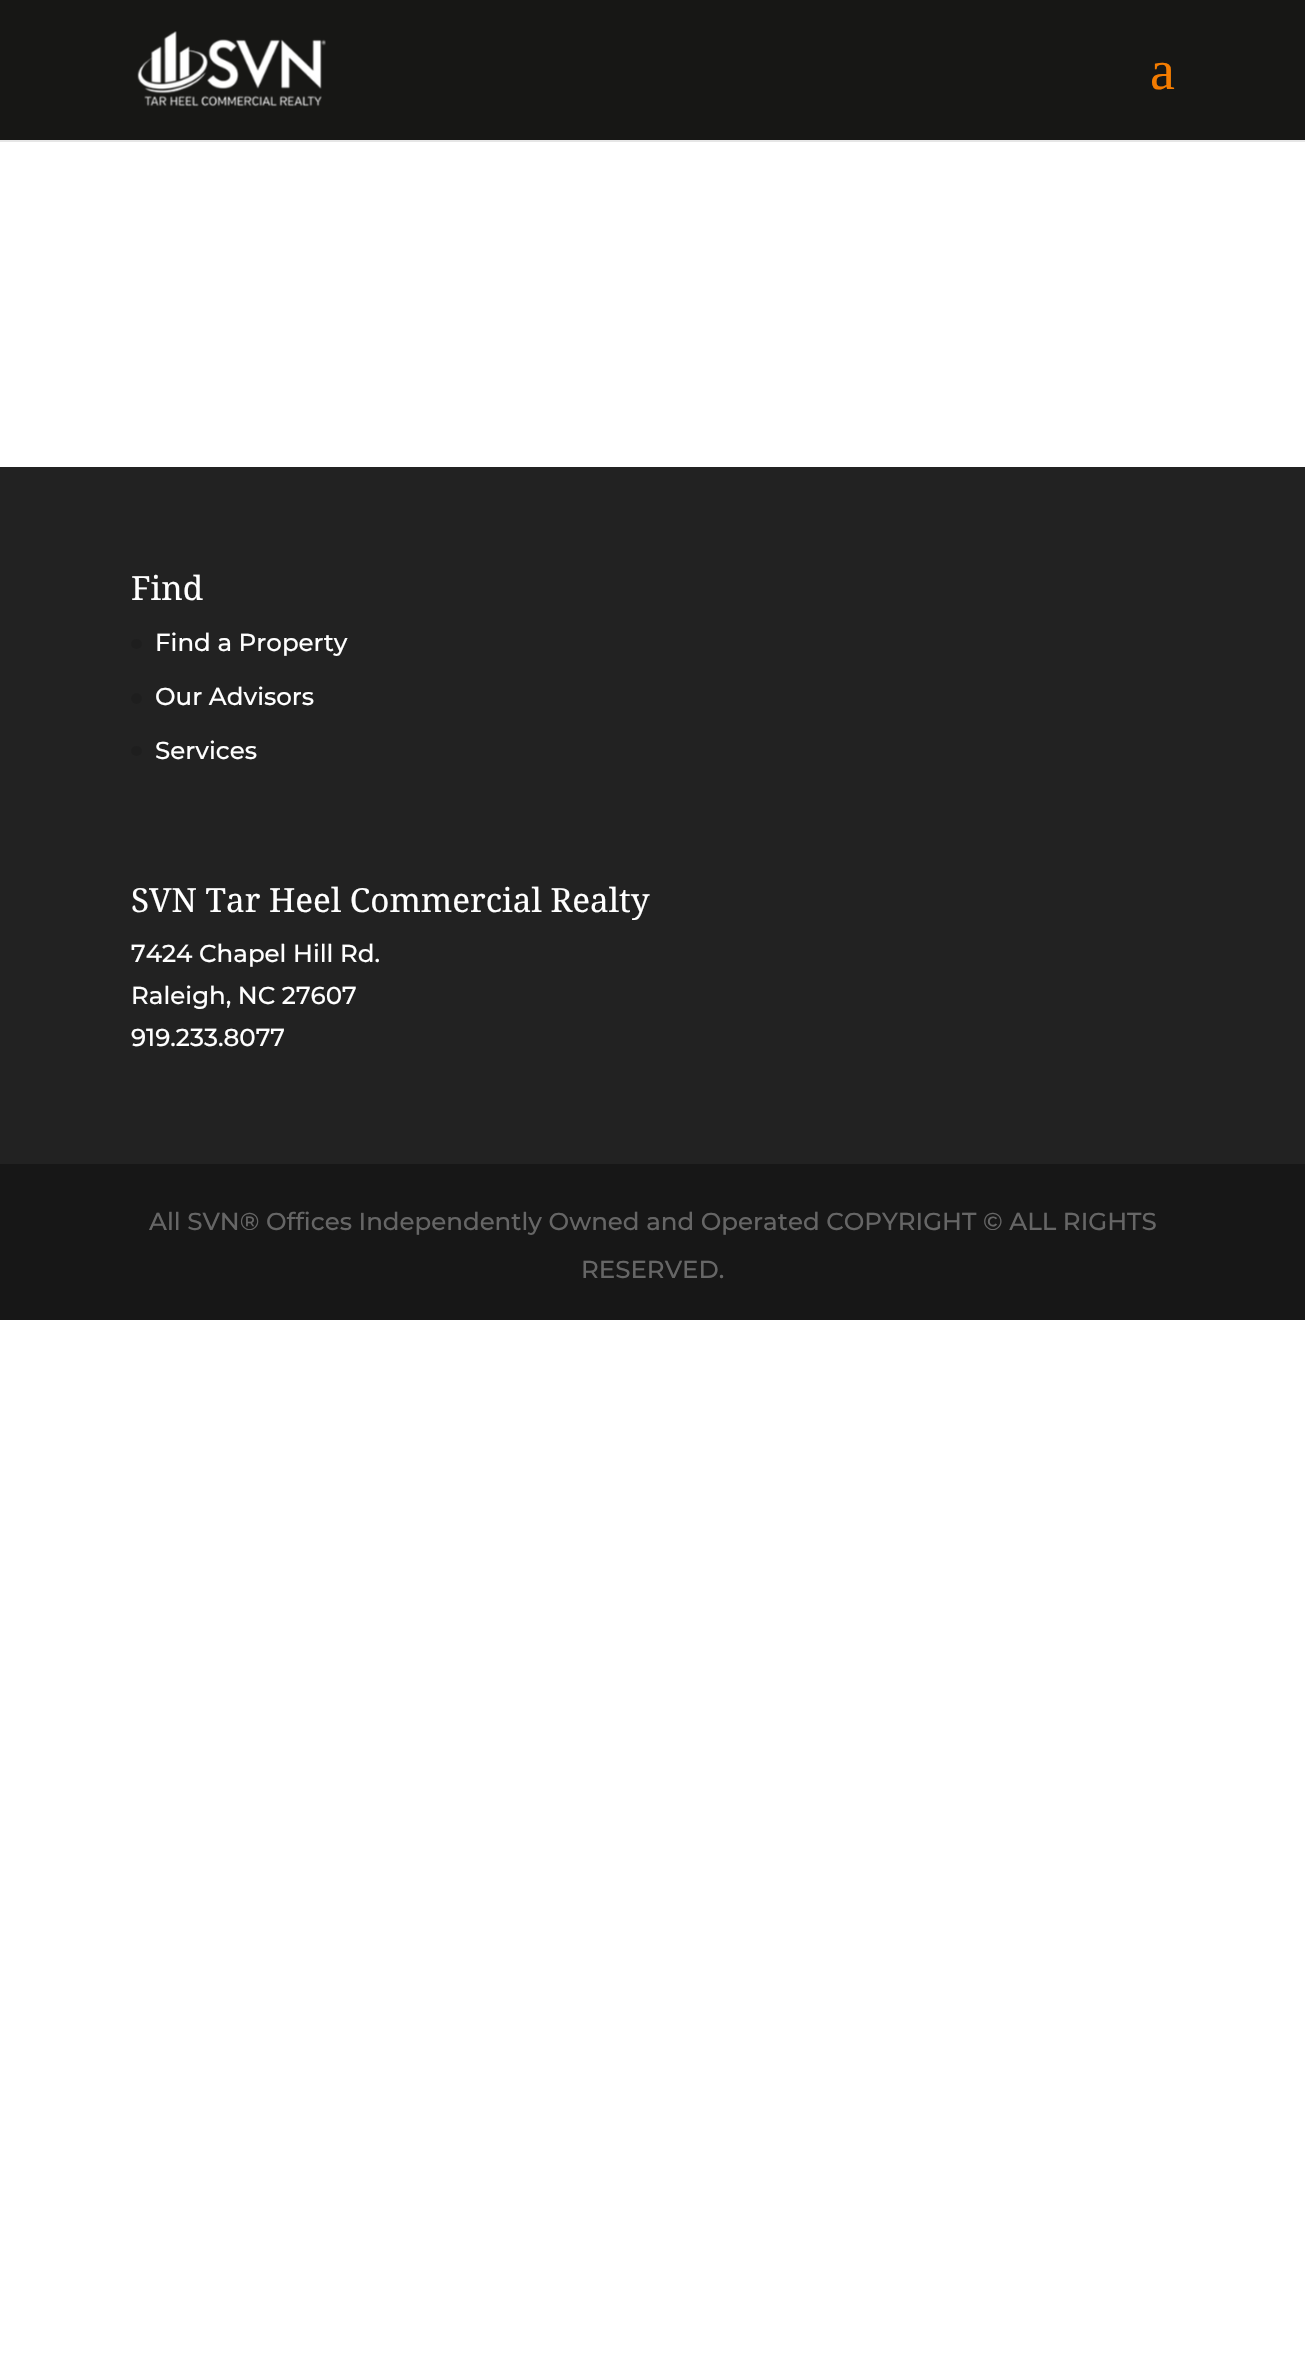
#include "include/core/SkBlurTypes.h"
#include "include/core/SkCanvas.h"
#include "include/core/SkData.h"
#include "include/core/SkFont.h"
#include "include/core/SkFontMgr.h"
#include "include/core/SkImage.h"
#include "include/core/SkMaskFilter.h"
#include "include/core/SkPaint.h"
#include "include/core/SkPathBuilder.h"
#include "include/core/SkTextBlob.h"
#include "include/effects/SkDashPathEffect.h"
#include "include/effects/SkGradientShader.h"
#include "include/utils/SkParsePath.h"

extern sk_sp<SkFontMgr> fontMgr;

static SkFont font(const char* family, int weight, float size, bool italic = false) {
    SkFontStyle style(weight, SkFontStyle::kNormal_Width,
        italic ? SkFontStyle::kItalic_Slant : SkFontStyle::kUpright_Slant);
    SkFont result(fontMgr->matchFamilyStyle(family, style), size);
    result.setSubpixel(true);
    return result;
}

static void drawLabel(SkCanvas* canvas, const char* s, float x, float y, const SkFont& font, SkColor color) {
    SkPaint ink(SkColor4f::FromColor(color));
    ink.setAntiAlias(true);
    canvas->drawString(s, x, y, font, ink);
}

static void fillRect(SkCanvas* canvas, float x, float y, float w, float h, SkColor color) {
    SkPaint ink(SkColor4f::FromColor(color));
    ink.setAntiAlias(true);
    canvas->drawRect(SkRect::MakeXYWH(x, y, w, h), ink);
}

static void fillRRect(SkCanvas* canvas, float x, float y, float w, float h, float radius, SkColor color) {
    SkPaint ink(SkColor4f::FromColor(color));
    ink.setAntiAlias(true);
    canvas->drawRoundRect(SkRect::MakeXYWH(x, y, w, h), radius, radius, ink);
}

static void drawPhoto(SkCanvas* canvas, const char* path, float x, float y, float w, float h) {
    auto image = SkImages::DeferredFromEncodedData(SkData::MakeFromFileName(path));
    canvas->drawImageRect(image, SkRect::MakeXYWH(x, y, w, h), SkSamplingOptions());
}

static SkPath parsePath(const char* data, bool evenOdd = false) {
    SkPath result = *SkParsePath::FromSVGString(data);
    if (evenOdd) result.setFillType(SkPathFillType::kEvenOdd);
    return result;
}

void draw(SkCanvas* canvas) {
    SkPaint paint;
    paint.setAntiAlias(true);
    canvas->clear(0xFFFFFFFF);
    paint.setColor(0xFFE6E6E6);
    canvas->drawPath(parsePath("M0 140V142H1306V2V140Z"), paint);
    fillRect(canvas, 0, 0, 1305, 140, 0xFF171715);
    drawPhoto(canvas, "assets/img1.png", 137, 31, 189, 76);
    SkFont font1 = font("Liberation Serif", 400, 56);
    drawLabel(canvas, "a", 1150, 89, font1, 0xFFF47C00);
    fillRect(canvas, 0, 467, 1305, 697, 0xFF222222);
    SkFont font2 = font("Noto Serif", 400, 33.25f);
    drawLabel(canvas, "Find", 131, 600, font2, 0xFFFFFFFF);
    fillRRect(canvas, 131, 639, 11, 10, 5, 0xFF1E1E1E);
    SkFont font3 = font("Montserrat", 100, 24.5f);
    drawLabel(canvas, "Find a Property", 155, 651, font3, 0xFFFFFFFF);
    paint.setColor(0xFF1E1E1E);
    canvas->drawCircle(136.5f, 698.5f, 5.5f, paint);
    drawLabel(canvas, "Our Advisors", 155, 705, font3, 0xFFFFFFFF);
    fillRRect(canvas, 131, 746, 11, 10, 5, 0xFF1E1E1E);
    drawLabel(canvas, "Services", 155, 759, font3, 0xFFFFFFFF);
    drawLabel(canvas, "SVN Tar Heel Commercial Realty", 131, 912, font2, 0xFFFFFFFF);
    drawLabel(canvas, "7424 Chapel Hill Rd.", 131, 962, font3, 0xFFFFFFFF);
    drawLabel(canvas, "Raleigh, NC 27607", 131, 1004, font3, 0xFFFFFFFF);
    drawLabel(canvas, "919.233.8077", 131, 1046, font3, 0xFFFFFFFF);
    fillRect(canvas, 0, 1164, 1305, 156, 0xFF171717);
    drawLabel(canvas, "All SVN® Offices Independently Owned and Operated COPYRIGHT © ALL RIGHTS", 149, 1230, font3, 0xFF666666);
    drawLabel(canvas, "RESERVED.", 581, 1278, font3, 0xFF666666);
}
